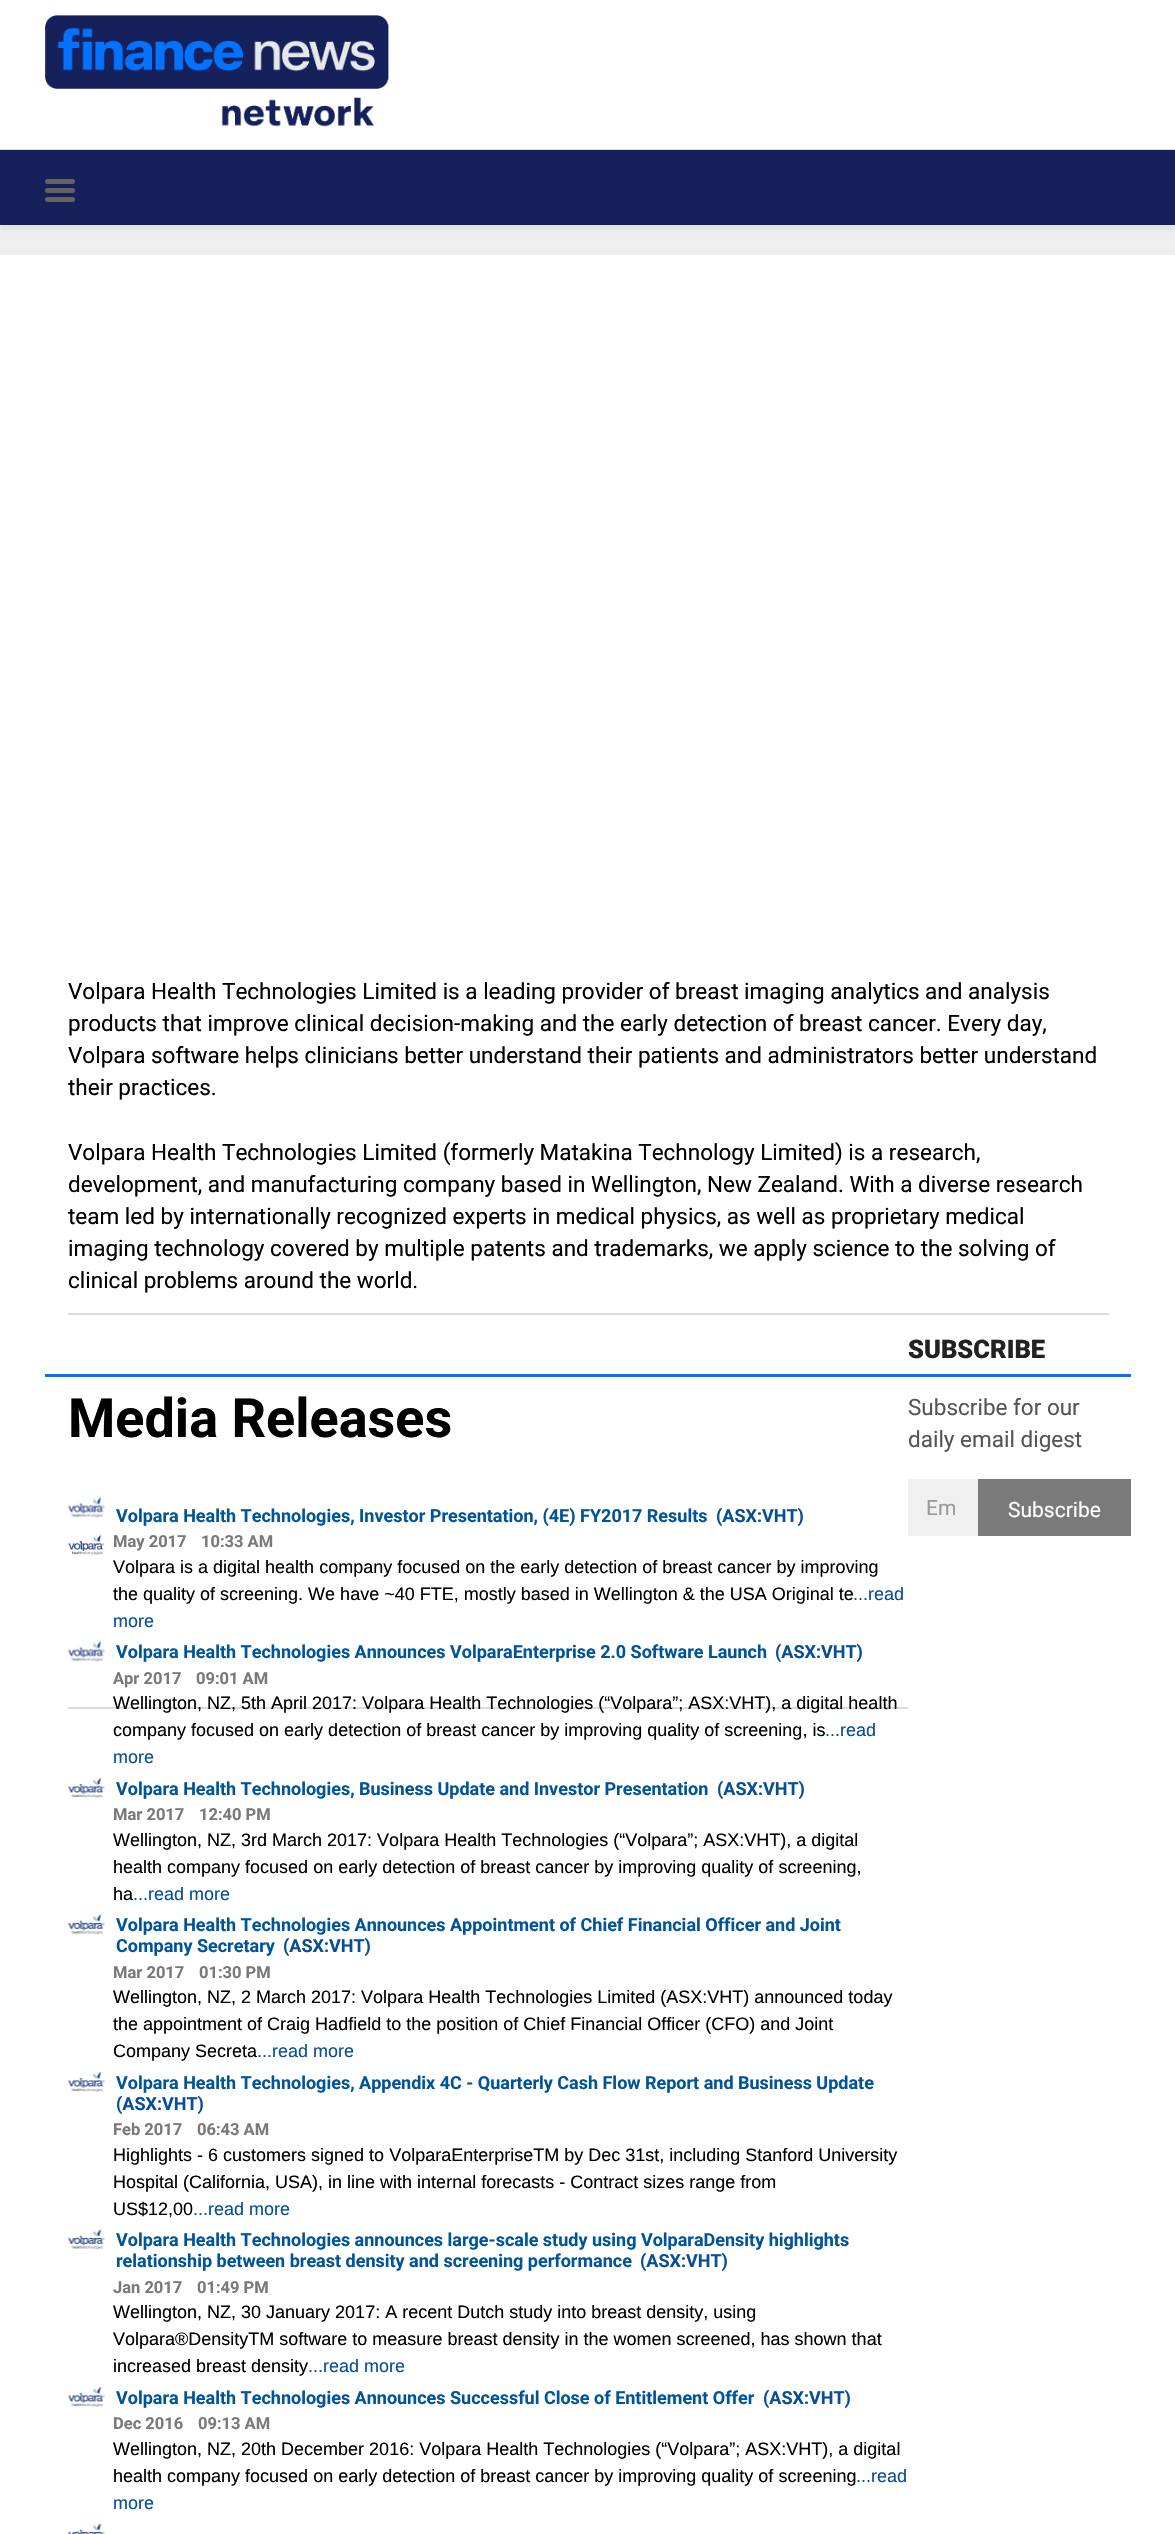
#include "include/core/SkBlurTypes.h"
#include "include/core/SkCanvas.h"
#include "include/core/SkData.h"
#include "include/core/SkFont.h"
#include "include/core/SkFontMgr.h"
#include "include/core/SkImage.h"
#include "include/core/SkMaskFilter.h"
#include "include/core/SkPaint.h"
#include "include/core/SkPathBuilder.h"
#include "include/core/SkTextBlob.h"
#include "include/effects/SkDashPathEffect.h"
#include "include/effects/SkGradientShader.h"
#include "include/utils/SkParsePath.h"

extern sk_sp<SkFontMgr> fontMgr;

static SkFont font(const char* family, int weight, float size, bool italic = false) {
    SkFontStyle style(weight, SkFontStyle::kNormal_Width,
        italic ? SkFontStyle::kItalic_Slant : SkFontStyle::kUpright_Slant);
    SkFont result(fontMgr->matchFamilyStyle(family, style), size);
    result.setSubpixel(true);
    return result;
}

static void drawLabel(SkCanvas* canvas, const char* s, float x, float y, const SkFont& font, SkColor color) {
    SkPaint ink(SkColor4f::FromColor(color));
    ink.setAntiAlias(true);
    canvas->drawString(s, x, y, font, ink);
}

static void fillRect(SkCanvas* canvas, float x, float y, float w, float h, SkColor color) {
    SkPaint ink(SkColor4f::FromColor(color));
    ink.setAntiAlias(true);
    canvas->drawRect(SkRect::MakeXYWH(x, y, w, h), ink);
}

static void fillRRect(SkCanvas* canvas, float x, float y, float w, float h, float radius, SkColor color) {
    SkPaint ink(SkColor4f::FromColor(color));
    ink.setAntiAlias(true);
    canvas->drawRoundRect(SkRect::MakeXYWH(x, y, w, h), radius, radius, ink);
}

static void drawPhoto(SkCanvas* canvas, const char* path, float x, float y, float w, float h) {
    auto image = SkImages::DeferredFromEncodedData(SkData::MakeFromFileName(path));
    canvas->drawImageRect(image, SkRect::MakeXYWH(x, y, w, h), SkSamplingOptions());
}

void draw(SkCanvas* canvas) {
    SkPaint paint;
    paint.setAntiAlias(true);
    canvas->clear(0xFFEFEFEF);
    fillRect(canvas, 0, 0, 1175, 149, 0xFFFFFFFF);
    fillRect(canvas, 0, 149, 1175, 1, 0xFFDADADA);
    drawPhoto(canvas, "assets/img1.png", 45, 15, 344, 112);
    paint.setColor(0x0D000000);
    paint.setMaskFilter(SkMaskFilter::MakeBlur(kNormal_SkBlurStyle, 1.5f));
    canvas->drawRect(SkRect::MakeXYWH(0, 155, 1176, 75), paint);
    paint.setMaskFilter(nullptr);
    fillRect(canvas, 0, 150, 1175, 75, 0xFF16215B);
    fillRRect(canvas, 45, 179, 30, 5, 2.5f, 0xFF646363);
    fillRRect(canvas, 45, 188, 30, 5, 2.5f, 0xFF646363);
    fillRRect(canvas, 45, 197, 30, 5, 2.5f, 0xFF646363);
    fillRect(canvas, 0, 255, 1175, 2279, 0xFFFFFFFF);
    SkFont font1 = font("Roboto", 400, 22.5f);
    drawLabel(canvas, "Volpara Health Technologies Limited is a leading provider of breast imaging analytics and analysis", 68, 999, font1, 0xFF000000);
    drawLabel(canvas, "products that improve clinical decision-making and the early detection of breast cancer. Every day,", 68, 1031, font1, 0xFF000000);
    drawLabel(canvas, "Volpara software helps clinicians better understand their patients and administrators better understand", 68, 1063, font1, 0xFF000000);
    drawLabel(canvas, "their practices.", 68, 1095, font1, 0xFF000000);
    drawLabel(canvas, "Volpara Health Technologies Limited (formerly Matakina Technology Limited) is a research,", 68, 1160, font1, 0xFF000000);
    drawLabel(canvas, "development, and manufacturing company based in Wellington, New Zealand. With a diverse research", 68, 1192, font1, 0xFF000000);
    drawLabel(canvas, "team led by internationally recognized experts in medical physics, as well as proprietary medical", 68, 1224, font1, 0xFF000000);
    drawLabel(canvas, "imaging technology covered by multiple patents and trademarks, we apply science to the solving of", 68, 1256, font1, 0xFF000000);
    drawLabel(canvas, "clinical problems around the world.", 68, 1288, font1, 0xFF000000);
    fillRect(canvas, 68, 1313, 1041, 2, 0xFFDADBDB);
    SkFont font2 = font("Roboto", 700, 54);
    drawLabel(canvas, "Media Releases", 68, 1437, font2, 0xFF000000);
    drawPhoto(canvas, "assets/img2.png", 67, 1497, 38, 21);
    SkFont font3 = font("Roboto", 700, 18);
    drawLabel(canvas, "Volpara Health Technologies, Investor Presentation, (4E) FY2017 Results", 116, 1522, font3, 0xFF00559A);
    drawLabel(canvas, "(ASX:VHT)", 716, 1522, font3, 0xFF094F95);
    SkFont font4 = font("Roboto", 700, 16.5f);
    drawLabel(canvas, "May 2017", 113, 1547, font4, 0xFF797979);
    drawLabel(canvas, "10:33 AM", 201, 1547, font4, 0xFF797979);
    SkFont font5 = font("Liberation Sans", 400, 18);
    drawLabel(canvas, "Volpara is a digital health company focused on the early detection of breast cancer by improving", 113, 1573, font5, 0xFF000000);
    drawLabel(canvas, "the quality of screening. We have ~40 FTE, mostly based in Wellington & the USA Original te", 113, 1600, font5, 0xFF000000);
    drawLabel(canvas, "...read", 853, 1600, font5, 0xFF094F95);
    drawLabel(canvas, "more", 113, 1627, font5, 0xFF094F95);
    drawPhoto(canvas, "assets/img3.png", 68, 1534, 37, 21);
    drawLabel(canvas, "Volpara Health Technologies Announces VolparaEnterprise 2.0 Software Launch", 116, 1658, font3, 0xFF00559A);
    drawLabel(canvas, "(ASX:VHT)", 775, 1658, font3, 0xFF094F95);
    drawLabel(canvas, "Apr 2017", 113, 1684, font4, 0xFF797979);
    drawLabel(canvas, "09:01 AM", 196, 1684, font4, 0xFF797979);
    fillRect(canvas, 68, 1707, 840, 2, 0xFFDADBDB);
    drawLabel(canvas, "Wellington, NZ, 5th April 2017: Volpara Health Technologies (“Volpara”; ASX:VHT), a digital health", 113, 1709, font5, 0xFF000000);
    drawLabel(canvas, "company focused on early detection of breast cancer by improving quality of screening, is", 113, 1736, font5, 0xFF000000);
    drawLabel(canvas, "...read", 825, 1736, font5, 0xFF094F95);
    drawLabel(canvas, "more", 113, 1763, font5, 0xFF094F95);
    drawPhoto(canvas, "assets/img2.png", 67, 1641, 38, 21);
    drawLabel(canvas, "Volpara Health Technologies, Business Update and Investor Presentation", 116, 1795, font3, 0xFF00559A);
    drawLabel(canvas, "(ASX:VHT)", 717, 1795, font3, 0xFF094F95);
    drawLabel(canvas, "Mar 2017", 113, 1820, font4, 0xFF797979);
    drawLabel(canvas, "12:40 PM", 199, 1820, font4, 0xFF797979);
    drawLabel(canvas, "Wellington, NZ, 3rd March 2017: Volpara Health Technologies (“Volpara”; ASX:VHT), a digital", 113, 1846, font5, 0xFF000000);
    drawLabel(canvas, "health company focused on early detection of breast cancer by improving quality of screening,", 113, 1873, font5, 0xFF000000);
    drawLabel(canvas, "ha", 113, 1900, font5, 0xFF000000);
    drawLabel(canvas, "...read more", 133, 1900, font5, 0xFF094F95);
    drawPhoto(canvas, "assets/img4.png", 67, 1777, 38, 21);
    drawLabel(canvas, "Volpara Health Technologies Announces Appointment of Chief Financial Officer and Joint", 116, 1931, font3, 0xFF00559A);
    drawLabel(canvas, "Company Secretary", 116, 1952, font3, 0xFF00559A);
    drawLabel(canvas, "(ASX:VHT)", 283, 1952, font3, 0xFF094F95);
    drawLabel(canvas, "Mar 2017", 113, 1978, font4, 0xFF797979);
    drawLabel(canvas, "01:30 PM", 199, 1978, font4, 0xFF797979);
    drawLabel(canvas, "Wellington, NZ, 2 March 2017: Volpara Health Technologies Limited (ASX:VHT) announced today", 113, 2003, font5, 0xFF000000);
    drawLabel(canvas, "the appointment of Craig Hadfield to the position of Chief Financial Officer (CFO) and Joint", 113, 2030, font5, 0xFF000000);
    drawLabel(canvas, "Company Secreta", 113, 2057, font5, 0xFF000000);
    drawLabel(canvas, "...read more", 257, 2057, font5, 0xFF094F95);
    drawPhoto(canvas, "assets/img5.png", 67, 1914, 38, 21);
    drawLabel(canvas, "Volpara Health Technologies, Appendix 4C - Quarterly Cash Flow Report and Business Update", 116, 2089, font3, 0xFF00559A);
    drawLabel(canvas, "(ASX:VHT)", 116, 2110, font3, 0xFF094F95);
    drawLabel(canvas, "Feb 2017", 113, 2135, font4, 0xFF797979);
    drawLabel(canvas, "06:43 AM", 197, 2135, font4, 0xFF797979);
    drawLabel(canvas, "Highlights - 6 customers signed to VolparaEnterpriseTM by Dec 31st, including Stanford University", 113, 2161, font5, 0xFF000000);
    drawLabel(canvas, "Hospital (California, USA), in line with internal forecasts - Contract sizes range from", 113, 2188, font5, 0xFF000000);
    drawLabel(canvas, "US$12,00", 113, 2215, font5, 0xFF000000);
    drawLabel(canvas, "...read more", 193, 2215, font5, 0xFF094F95);
    drawPhoto(canvas, "assets/img4.png", 67, 2071, 38, 21);
    drawLabel(canvas, "Volpara Health Technologies announces large-scale study using VolparaDensity highlights", 116, 2246, font3, 0xFF00559A);
    drawLabel(canvas, "relationship between breast density and screening performance", 116, 2267, font3, 0xFF00559A);
    drawLabel(canvas, "(ASX:VHT)", 640, 2267, font3, 0xFF094F95);
    drawLabel(canvas, "Jan 2017", 113, 2293, font4, 0xFF797979);
    drawLabel(canvas, "01:49 PM", 197, 2293, font4, 0xFF797979);
    drawLabel(canvas, "Wellington, NZ, 30 January 2017: A recent Dutch study into breast density, using", 113, 2318, font5, 0xFF000000);
    drawLabel(canvas, "Volpara®DensityTM software to measure breast density in the women screened, has shown that", 113, 2345, font5, 0xFF000000);
    drawLabel(canvas, "increased breast density", 113, 2372, font5, 0xFF000000);
    drawLabel(canvas, "...read more", 308, 2372, font5, 0xFF094F95);
    drawPhoto(canvas, "assets/img6.png", 68, 2386, 37, 21);
    drawPhoto(canvas, "assets/img5.png", 67, 2229, 38, 21);
    drawLabel(canvas, "Volpara Health Technologies Announces Successful Close of Entitlement Offer", 116, 2404, font3, 0xFF00559A);
    drawLabel(canvas, "(ASX:VHT)", 763, 2404, font3, 0xFF094F95);
    drawLabel(canvas, "Dec 2016", 113, 2429, font4, 0xFF797979);
    drawLabel(canvas, "09:13 AM", 198, 2429, font4, 0xFF797979);
    drawLabel(canvas, "Wellington, NZ, 20th December 2016: Volpara Health Technologies (“Volpara”; ASX:VHT), a digital", 113, 2455, font5, 0xFF000000);
    drawLabel(canvas, "health company focused on early detection of breast cancer by improving quality of screening", 113, 2482, font5, 0xFF000000);
    drawLabel(canvas, "...read", 856, 2482, font5, 0xFF094F95);
    drawLabel(canvas, "more", 113, 2509, font5, 0xFF094F95);
    drawPhoto(canvas, "assets/img7.png", 68, 2523, 37, 11);
    fillRect(canvas, 45, 1374, 1086, 3, 0xFF0373FF);
    SkFont font6 = font("Roboto", 900, 25.5f);
    drawLabel(canvas, "SUBSCRIBE", 908, 1358, font6, 0xFF222222);
    drawLabel(canvas, "Subscribe for our", 908, 1415, font1, 0xFF555555);
    drawLabel(canvas, "daily email digest", 908, 1447, font1, 0xFF555555);
    fillRect(canvas, 908, 1479, 70, 57, 0xFFF0F0F0);
    SkFont font7 = font("Roboto", 400, 21);
    drawLabel(canvas, "Em", 926, 1515, font7, 0xFF999999);
    fillRect(canvas, 978, 1479, 153, 57, 0xFF7A7A7A);
    drawLabel(canvas, "Subscribe", 1008, 1517, font7, 0xFFFFFFFF);
}
